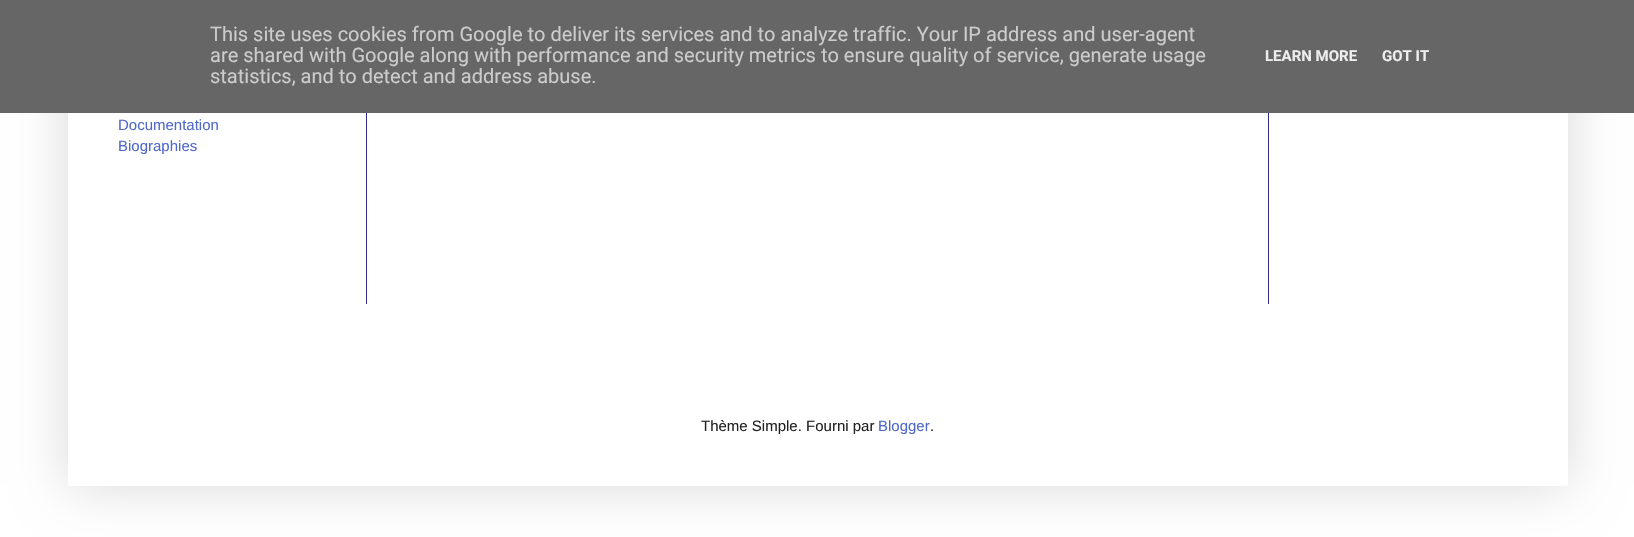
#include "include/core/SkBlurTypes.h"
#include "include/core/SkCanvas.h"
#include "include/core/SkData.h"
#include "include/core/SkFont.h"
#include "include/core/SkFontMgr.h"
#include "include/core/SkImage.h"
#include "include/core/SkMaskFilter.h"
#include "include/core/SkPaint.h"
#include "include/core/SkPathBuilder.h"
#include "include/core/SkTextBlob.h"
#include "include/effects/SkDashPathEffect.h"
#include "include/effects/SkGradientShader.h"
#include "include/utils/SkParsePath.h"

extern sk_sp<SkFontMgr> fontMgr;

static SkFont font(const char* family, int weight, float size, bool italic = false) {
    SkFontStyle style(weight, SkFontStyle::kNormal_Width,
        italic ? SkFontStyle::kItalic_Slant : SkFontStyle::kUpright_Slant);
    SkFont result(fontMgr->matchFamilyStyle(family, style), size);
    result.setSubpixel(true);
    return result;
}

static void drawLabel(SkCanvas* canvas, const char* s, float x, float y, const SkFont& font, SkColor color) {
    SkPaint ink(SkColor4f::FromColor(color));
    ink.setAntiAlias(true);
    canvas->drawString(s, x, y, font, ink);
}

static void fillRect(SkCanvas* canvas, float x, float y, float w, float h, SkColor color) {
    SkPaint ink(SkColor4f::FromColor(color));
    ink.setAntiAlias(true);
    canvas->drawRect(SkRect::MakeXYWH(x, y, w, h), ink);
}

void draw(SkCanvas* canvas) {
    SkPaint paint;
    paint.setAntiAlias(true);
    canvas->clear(0xFFFFFFFF);
    paint.setColor(0x26000000);
    paint.setMaskFilter(SkMaskFilter::MakeBlur(kNormal_SkBlurStyle, 25));
    canvas->drawRect(SkRect::MakeXYWH(68, -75, 1500, 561), paint);
    paint.setMaskFilter(nullptr);
    fillRect(canvas, 0, 0, 1634, 113, 0xFF666666);
    SkFont font1 = font("Roboto", 400, 20);
    drawLabel(canvas, "This site uses cookies from Google to deliver its services and to analyze traffic. Your IP address and user-agent", 210, 41, font1, 0xFFCCCCCC);
    drawLabel(canvas, "are shared with Google along with performance and security metrics to ensure quality of service, generate usage", 210, 62, font1, 0xFFCCCCCC);
    drawLabel(canvas, "statistics, and to detect and address abuse.", 210, 83, font1, 0xFFCCCCCC);
    SkFont font2 = font("Roboto", 700, 15);
    drawLabel(canvas, "LEARN MORE", 1265, 61, font2, 0xFFEEEEEE);
    drawLabel(canvas, "GOT IT", 1382, 61, font2, 0xFFEEEEEE);
    fillRect(canvas, 68, 113, 1500, 373, 0xFFFFFFFF);
    SkFont font3 = font("Liberation Sans", 400, 15);
    drawLabel(canvas, "Documentation", 118, 130, font3, 0xFF5069C9);
    drawLabel(canvas, "Biographies", 118, 151, font3, 0xFF5069C9);
    fillRect(canvas, 366, 113, 1, 191, 0xFF312F83);
    fillRect(canvas, 1268, 113, 1, 191, 0xFF312F83);
    drawLabel(canvas, "Thème Simple. Fourni par", 701, 431, font3, 0xFF222222);
    drawLabel(canvas, "Blogger", 878, 431, font3, 0xFF5069C9);
    drawLabel(canvas, ".", 930, 431, font3, 0xFF222222);
}
